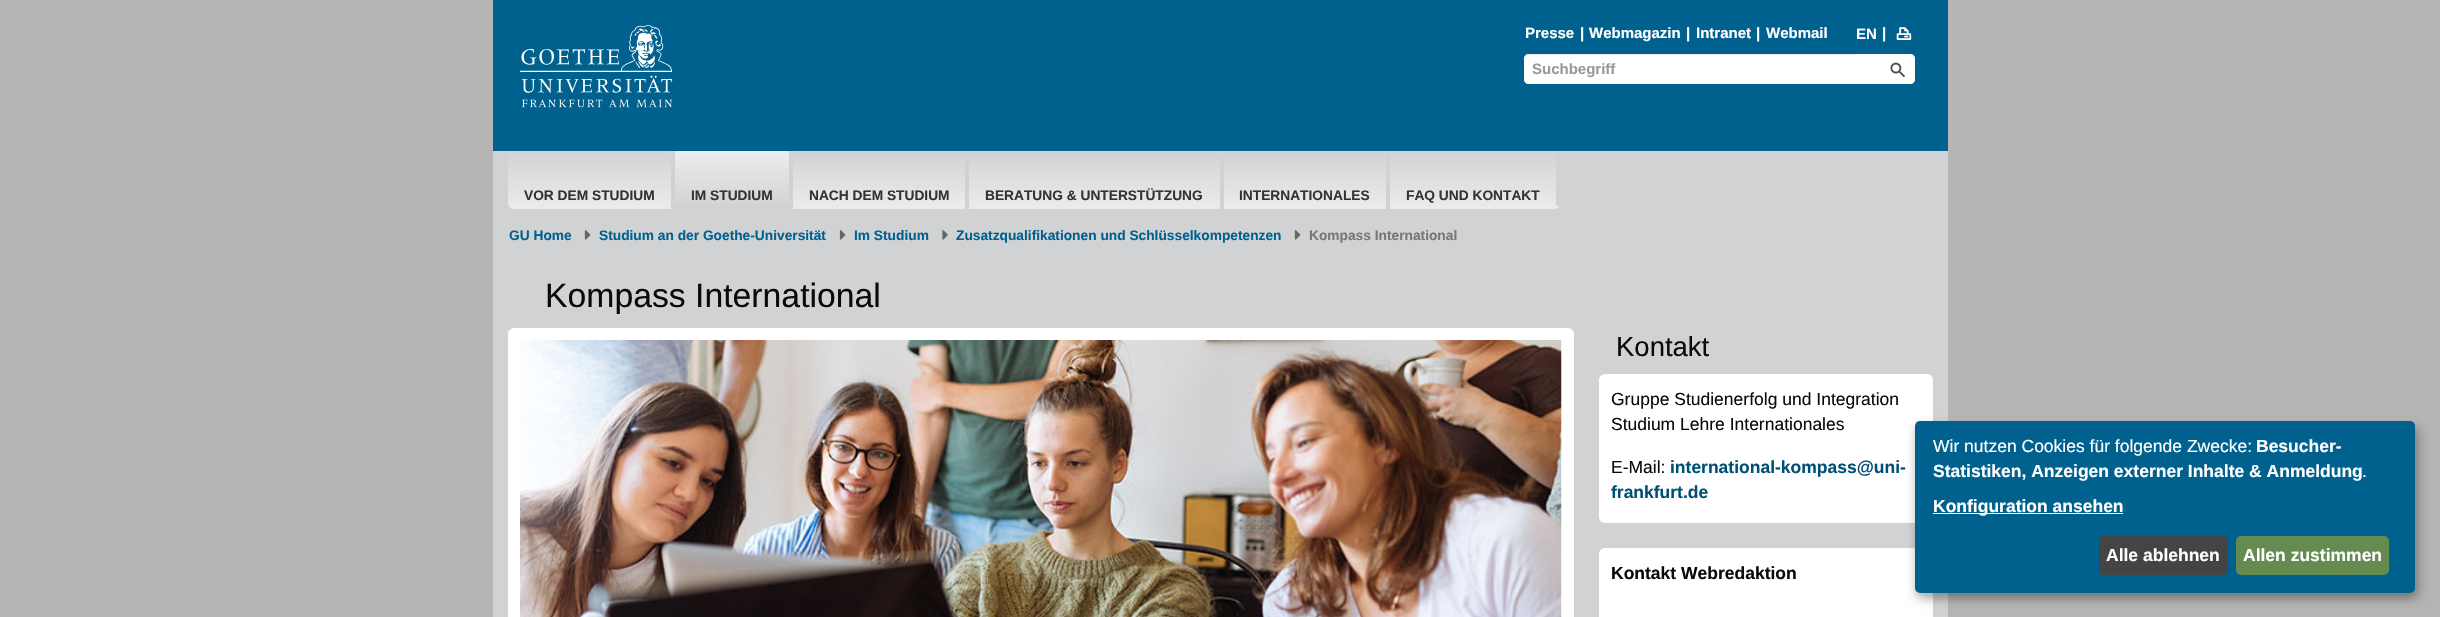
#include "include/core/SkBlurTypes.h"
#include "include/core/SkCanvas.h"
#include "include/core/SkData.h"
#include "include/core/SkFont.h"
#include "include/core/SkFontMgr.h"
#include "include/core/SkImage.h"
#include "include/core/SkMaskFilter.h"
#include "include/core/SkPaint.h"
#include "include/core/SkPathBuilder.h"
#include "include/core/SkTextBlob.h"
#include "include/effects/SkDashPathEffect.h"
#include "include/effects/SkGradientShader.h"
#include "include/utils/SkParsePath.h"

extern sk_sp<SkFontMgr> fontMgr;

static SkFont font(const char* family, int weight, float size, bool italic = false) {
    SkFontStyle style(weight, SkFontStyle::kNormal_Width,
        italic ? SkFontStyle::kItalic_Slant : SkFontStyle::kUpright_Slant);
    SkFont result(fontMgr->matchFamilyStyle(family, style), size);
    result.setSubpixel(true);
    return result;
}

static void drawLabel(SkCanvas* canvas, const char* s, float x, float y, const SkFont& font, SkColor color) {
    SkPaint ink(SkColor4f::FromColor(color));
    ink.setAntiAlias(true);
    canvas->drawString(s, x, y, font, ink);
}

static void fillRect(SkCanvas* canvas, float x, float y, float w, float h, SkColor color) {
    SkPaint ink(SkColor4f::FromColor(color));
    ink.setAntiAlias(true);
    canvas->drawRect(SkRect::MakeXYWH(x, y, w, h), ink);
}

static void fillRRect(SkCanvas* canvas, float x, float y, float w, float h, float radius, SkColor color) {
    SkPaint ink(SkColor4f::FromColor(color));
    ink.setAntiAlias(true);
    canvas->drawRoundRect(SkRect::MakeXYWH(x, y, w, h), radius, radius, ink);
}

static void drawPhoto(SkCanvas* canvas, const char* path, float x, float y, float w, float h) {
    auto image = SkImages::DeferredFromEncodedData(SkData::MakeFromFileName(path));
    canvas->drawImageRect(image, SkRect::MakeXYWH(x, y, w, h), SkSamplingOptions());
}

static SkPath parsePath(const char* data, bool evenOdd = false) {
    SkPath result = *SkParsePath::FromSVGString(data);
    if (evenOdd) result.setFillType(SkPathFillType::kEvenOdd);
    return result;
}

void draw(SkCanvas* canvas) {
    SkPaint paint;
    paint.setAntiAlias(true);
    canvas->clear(0xFFB7B4B4);
    fillRect(canvas, 493, 0, 1455, 151, 0xFF00618F);
    drawPhoto(canvas, "assets/img1.png", 520, 25, 153, 83);
    SkFont font1 = font("Liberation Sans", 700, 15);
    drawLabel(canvas, "Presse", 1525, 38, font1, 0xFFFFFFFF);
    drawLabel(canvas, "|", 1580, 38, font1, 0xFFFFFFFF);
    drawLabel(canvas, "Webmagazin", 1589, 38, font1, 0xFFFFFFFF);
    drawLabel(canvas, "|", 1686, 38, font1, 0xFFFFFFFF);
    drawLabel(canvas, "Intranet", 1696, 38, font1, 0xFFFFFFFF);
    drawLabel(canvas, "|", 1756, 38, font1, 0xFFFFFFFF);
    drawLabel(canvas, "Webmail", 1766, 38, font1, 0xFFFFFFFF);
    drawLabel(canvas, "EN", 1856, 39, font1, 0xFFFFFFFF);
    drawLabel(canvas, "|", 1882, 38, font1, 0xFFFFFFFF);
    drawPhoto(canvas, "assets/img2.png", 1896, 27, 16, 13);
    fillRRect(canvas, 1524, 54, 391, 30, 5, 0xFFFFFFFF);
    paint.setColor(0xFFFFFFFF);
    canvas->drawPath(parsePath("M1529 54H1856V84H1529C1526 84 1524 82 1524 79V59C1524 56 1526 54 1529 54Z"), paint);
    fillRect(canvas, 1524, 54, 332, 1, 0x12000000);
    drawLabel(canvas, "Suchbegriff", 1532, 74, font1, 0xFF999999);
    canvas->drawPath(parsePath("M1880 54H1910C1913 54 1915 56 1915 59V79C1915 82 1913 84 1910 84H1880Z"), paint);
    drawPhoto(canvas, "assets/img3.png", 1890, 62, 15, 15);
    fillRect(canvas, 493, 151, 1455, 466, 0xFFD1D2D3);
    {
        const SkColor colors[] = {0xFFD1D2D3, 0xFFEBEDEC};
        const float stops[] = {0, 1};
        const SkPoint ends[] = {{589, 151}, {589, 209}};
        paint.setShader(SkGradientShader::MakeLinear(ends, colors, stops, 2, SkTileMode::kClamp));
        paint.setAlpha(255);
    }
    canvas->drawPath(parsePath("M508 151H675V209H514C510.5 209 508 206.5 508 203Z"), paint);
    fillRect(canvas, 671, 151, 4, 58, 0xFFD1D2D3);
    SkFont font2 = font("Liberation Sans", 700, 13.75f);
    drawLabel(canvas, "VOR DEM STUDIUM", 524, 200, font2, 0xFF333333);
    {
        const SkColor colors[] = {0xFFEBEDEC, 0xFFD1D2D3};
        const float stops[] = {0, 1};
        const SkPoint ends[] = {{732, 151}, {732, 209}};
        paint.setShader(SkGradientShader::MakeLinear(ends, colors, stops, 2, SkTileMode::kClamp));
        paint.setAlpha(255);
    }
    canvas->drawRect(SkRect::MakeXYWH(675, 151, 114, 53), paint);
    drawLabel(canvas, "IM STUDIUM", 691, 200, font2, 0xFF333333);
    {
        const SkColor colors[] = {0xFFD1D2D3, 0xFFEBEDEC};
        const float stops[] = {0, 1};
        const SkPoint ends[] = {{879, 151}, {879, 209}};
        paint.setShader(SkGradientShader::MakeLinear(ends, colors, stops, 2, SkTileMode::kClamp));
        paint.setAlpha(255);
    }
    canvas->drawRect(SkRect::MakeXYWH(793, 156, 172, 53), paint);
    drawLabel(canvas, "NACH DEM STUDIUM", 809, 200, font2, 0xFF333333);
    {
        const SkColor colors[] = {0xFFD1D2D3, 0xFFEBEDEC};
        const float stops[] = {0, 1};
        const SkPoint ends[] = {{1094, 151}, {1094, 209}};
        paint.setShader(SkGradientShader::MakeLinear(ends, colors, stops, 2, SkTileMode::kClamp));
        paint.setAlpha(255);
    }
    canvas->drawRect(SkRect::MakeXYWH(969, 156, 251, 53), paint);
    drawLabel(canvas, "BERATUNG & UNTERSTÜTZUNG", 985, 200, font2, 0xFF333333);
    {
        const SkColor colors[] = {0xFFD1D2D3, 0xFFEBEDEC};
        const float stops[] = {0, 1};
        const SkPoint ends[] = {{1305, 151}, {1305, 209}};
        paint.setShader(SkGradientShader::MakeLinear(ends, colors, stops, 2, SkTileMode::kClamp));
        paint.setAlpha(255);
    }
    canvas->drawRect(SkRect::MakeXYWH(1224, 156, 162, 53), paint);
    drawLabel(canvas, "INTERNATIONALES", 1239, 200, font2, 0xFF333333);
    {
        const SkColor colors[] = {0xFFD1D2D3, 0xFFEBEDEC};
        const float stops[] = {0, 1};
        const SkPoint ends[] = {{1473, 151}, {1473, 209}};
        paint.setShader(SkGradientShader::MakeLinear(ends, colors, stops, 2, SkTileMode::kClamp));
        paint.setAlpha(255);
    }
    canvas->drawPath(parsePath("M1390 151H1560V203C1560 206.5 1557.5 209 1554 209H1390Z"), paint);
    fillRect(canvas, 1556, 151, 4, 55, 0xFFD1D2D3);
    drawLabel(canvas, "FAQ UND KONTAKT", 1406, 200, font2, 0xFF333333);
    drawLabel(canvas, "GU Home", 509, 240, font2, 0xFF00618F);
    drawPhoto(canvas, "assets/img4.png", 584, 230, 7, 10);
    drawLabel(canvas, "Studium an der Goethe-Universität", 599, 240, font2, 0xFF00618F);
    drawPhoto(canvas, "assets/img4.png", 839, 230, 7, 10);
    drawLabel(canvas, "Im Studium", 854, 240, font2, 0xFF00618F);
    drawPhoto(canvas, "assets/img5.png", 942, 230, 6, 10);
    drawLabel(canvas, "Zusatzqualifikationen und Schlüsselkompetenzen", 956, 240, font2, 0xFF00618F);
    drawPhoto(canvas, "assets/img4.png", 1294, 230, 7, 10);
    drawLabel(canvas, "Kompass International", 1309, 240, font2, 0xFF777777);
    SkFont font3 = font("Liberation Sans", 400, 33.75f);
    drawLabel(canvas, "Kompass International", 545, 307, font3, 0xFF0A0A0A);
    fillRRect(canvas, 508, 328, 1066, 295, 6, 0xFFFFFFFF);
    drawPhoto(canvas, "assets/img6.png", 520, 340, 1042, 277);
    SkFont font4 = font("Liberation Sans", 400, 27.5f);
    drawLabel(canvas, "Kontakt", 1616, 356, font4, 0xFF0A0A0A);
    fillRRect(canvas, 1599, 374, 334, 149, 6, 0xFFFFFFFF);
    SkFont font5 = font("Liberation Sans", 400, 17.5f);
    drawLabel(canvas, "Gruppe Studienerfolg und Integration", 1611, 405, font5, 0xFF0A0A0A);
    drawLabel(canvas, "Studium Lehre Internationales", 1611, 430, font5, 0xFF0A0A0A);
    drawLabel(canvas, "E-Mail:", 1611, 473, font5, 0xFF0A0A0A);
    SkFont font6 = font("Liberation Sans", 700, 17.5f);
    drawLabel(canvas, "international-kompass@uni-", 1670, 473, font6, 0xFF005076);
    drawLabel(canvas, "frankfurt.de", 1611, 498, font6, 0xFF005076);
    fillRRect(canvas, 1599, 548, 334, 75, 6, 0xFFFFFFFF);
    drawLabel(canvas, "Kontakt Webredaktion", 1611, 579, font6, 0xFF0A0A0A);
    paint.setShader(nullptr);
    paint.setColor(0x30000000);
    paint.setMaskFilter(SkMaskFilter::MakeBlur(kNormal_SkBlurStyle, 6));
    canvas->drawRoundRect(SkRect::MakeXYWH(1921, 428, 500, 171), 5, 5, paint);
    paint.setMaskFilter(nullptr);
    paint.setColor(0x33000000);
    paint.setMaskFilter(SkMaskFilter::MakeBlur(kNormal_SkBlurStyle, 4));
    canvas->drawRoundRect(SkRect::MakeXYWH(1915, 426, 500, 172), 5, 5, paint);
    paint.setMaskFilter(nullptr);
    fillRRect(canvas, 1915, 421, 500, 172, 5, 0xFF00618F);
    drawLabel(canvas, "Wir nutzen Cookies für folgende Zwecke:", 1933, 452, font5, 0xFFFFFFFF);
    drawLabel(canvas, "Besucher-", 2256, 452, font6, 0xFFFFFFFF);
    drawLabel(canvas, "Statistiken, Anzeigen externer Inhalte & Anmeldung", 1933, 477, font6, 0xFFFFFFFF);
    drawLabel(canvas, ".", 2362, 477, font5, 0xFFFFFFFF);
    fillRect(canvas, 1933, 513, 190, 1, 0xFFFFFFFF);
    drawLabel(canvas, "Konfiguration ansehen", 1933, 512, font6, 0xFFFFFFFF);
    fillRRect(canvas, 2099, 536, 129, 39, 5, 0xFF444444);
    drawLabel(canvas, "Alle ablehnen", 2106, 561, font6, 0xFFFFFFFF);
    fillRRect(canvas, 2236, 536, 153, 39, 5, 0xFF658B51);
    drawLabel(canvas, "Allen zustimmen", 2243, 561, font6, 0xFFFFFFFF);
}
